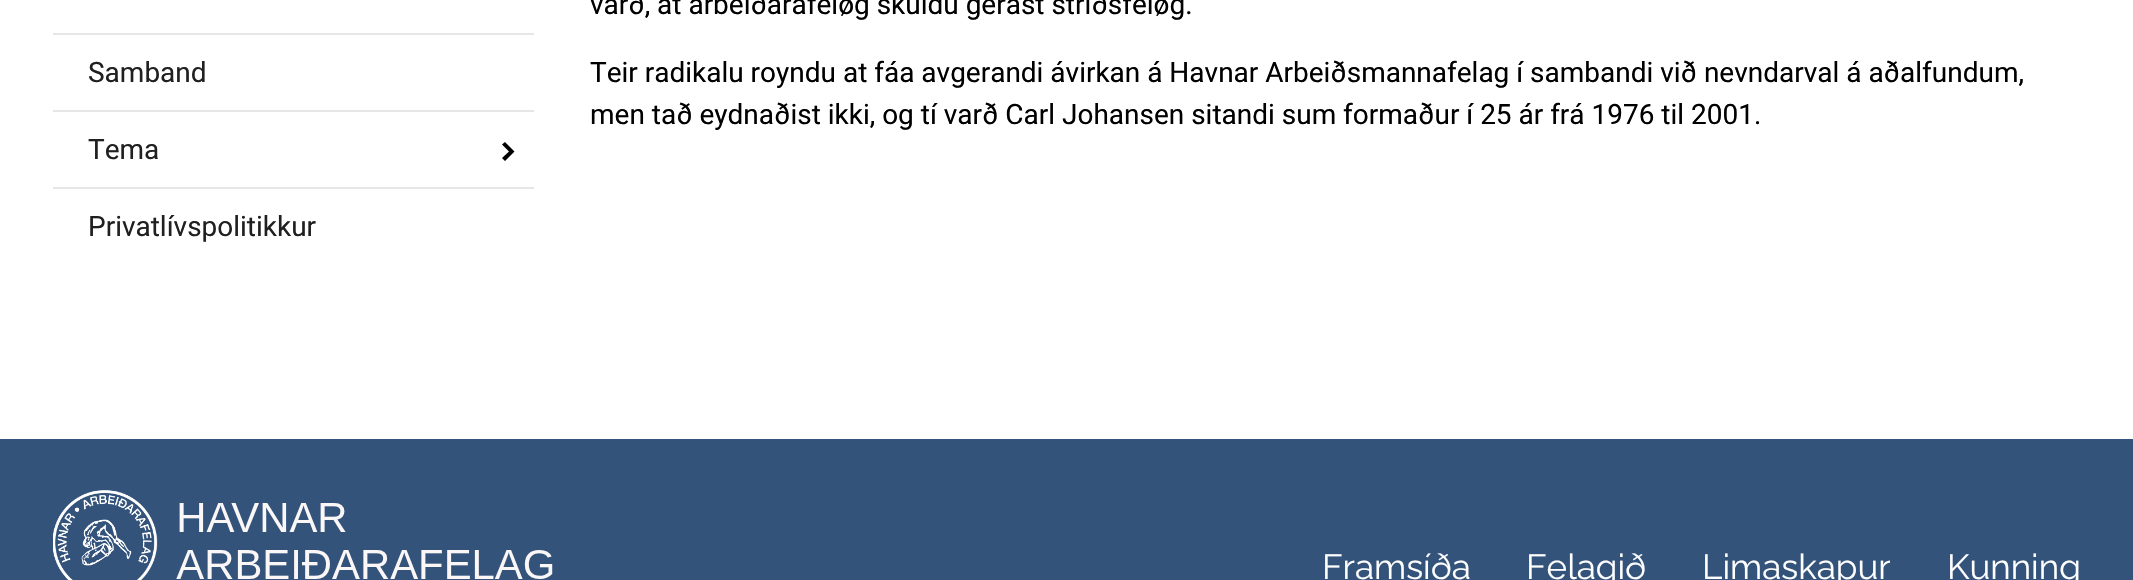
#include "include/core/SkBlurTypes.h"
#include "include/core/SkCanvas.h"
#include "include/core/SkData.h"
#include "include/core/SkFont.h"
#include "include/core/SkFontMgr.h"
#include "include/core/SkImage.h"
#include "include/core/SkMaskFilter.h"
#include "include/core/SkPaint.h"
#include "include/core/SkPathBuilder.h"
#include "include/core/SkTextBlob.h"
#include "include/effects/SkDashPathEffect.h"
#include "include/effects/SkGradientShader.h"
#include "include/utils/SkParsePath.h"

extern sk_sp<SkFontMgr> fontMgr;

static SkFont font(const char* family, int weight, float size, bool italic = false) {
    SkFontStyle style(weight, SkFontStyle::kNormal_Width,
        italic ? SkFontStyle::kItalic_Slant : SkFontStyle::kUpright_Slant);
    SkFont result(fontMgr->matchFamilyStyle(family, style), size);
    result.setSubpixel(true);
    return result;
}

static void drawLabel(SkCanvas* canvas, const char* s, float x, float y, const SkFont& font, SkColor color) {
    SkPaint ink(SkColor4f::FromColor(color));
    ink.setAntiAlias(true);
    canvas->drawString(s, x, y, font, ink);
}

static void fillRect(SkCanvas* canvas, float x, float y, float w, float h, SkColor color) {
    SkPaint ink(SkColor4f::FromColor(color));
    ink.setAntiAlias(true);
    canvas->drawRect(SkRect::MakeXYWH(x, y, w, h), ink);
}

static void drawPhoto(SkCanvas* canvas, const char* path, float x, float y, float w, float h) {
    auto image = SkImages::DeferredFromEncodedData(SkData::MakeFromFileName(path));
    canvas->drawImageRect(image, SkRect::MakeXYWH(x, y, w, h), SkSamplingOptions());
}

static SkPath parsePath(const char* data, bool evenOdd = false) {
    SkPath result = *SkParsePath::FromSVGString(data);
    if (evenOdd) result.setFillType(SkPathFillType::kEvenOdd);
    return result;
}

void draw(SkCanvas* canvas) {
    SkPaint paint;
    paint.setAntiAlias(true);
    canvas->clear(0xFFFFFFFF);
    fillRect(canvas, 53, 33, 481, 2, 0xFFE6E6E6);
    SkFont font1 = font("Roboto", 400, 28);
    drawLabel(canvas, "Samband", 88, 82, font1, 0xFF202020);
    fillRect(canvas, 53, 110, 481, 2, 0xFFE6E6E6);
    drawLabel(canvas, "Tema", 88, 159, font1, 0xFF202020);
    paint.setColor(0xFF000000);
    canvas->drawPath(parsePath("M514.5 151.5L505 161L502 158L509 151.5L502 144.5L505 142Z"), paint);
    fillRect(canvas, 53, 187, 481, 2, 0xFFE6E6E6);
    drawLabel(canvas, "Privatlívspolitikkur", 88, 236, font1, 0xFF202020);
    drawLabel(canvas, "varð, at arbeiðarafeløg skuldu gerast stríðsfeløg.", 590, 14, font1, 0xFF000000);
    drawLabel(canvas, "Teir radikalu royndu at fáa avgerandi ávirkan á Havnar Arbeiðsmannafelag í sambandi við nevndarval á aðalfundum,", 590, 82, font1, 0xFF000000);
    drawLabel(canvas, "men tað eydnaðist ikki, og tí varð Carl Johansen sitandi sum formaður í 25 ár frá 1976 til 2001.", 590, 124, font1, 0xFF000000);
    fillRect(canvas, 0, 439, 2133, 141, 0xFF33537B);
    drawPhoto(canvas, "assets/img1.png", 53, 490, 500, 90);
    SkFont font2 = font("Raleway", 100, 35);
    drawLabel(canvas, "Framsíða", 1322, 579, font2, 0xFFFFFFFF);
    drawLabel(canvas, "Felagið", 1526, 579, font2, 0xFFFFFFFF);
    drawLabel(canvas, "Limaskapur", 1702, 579, font2, 0xFFFFFFFF);
    drawLabel(canvas, "Kunning", 1947, 579, font2, 0xFFFFFFFF);
}
